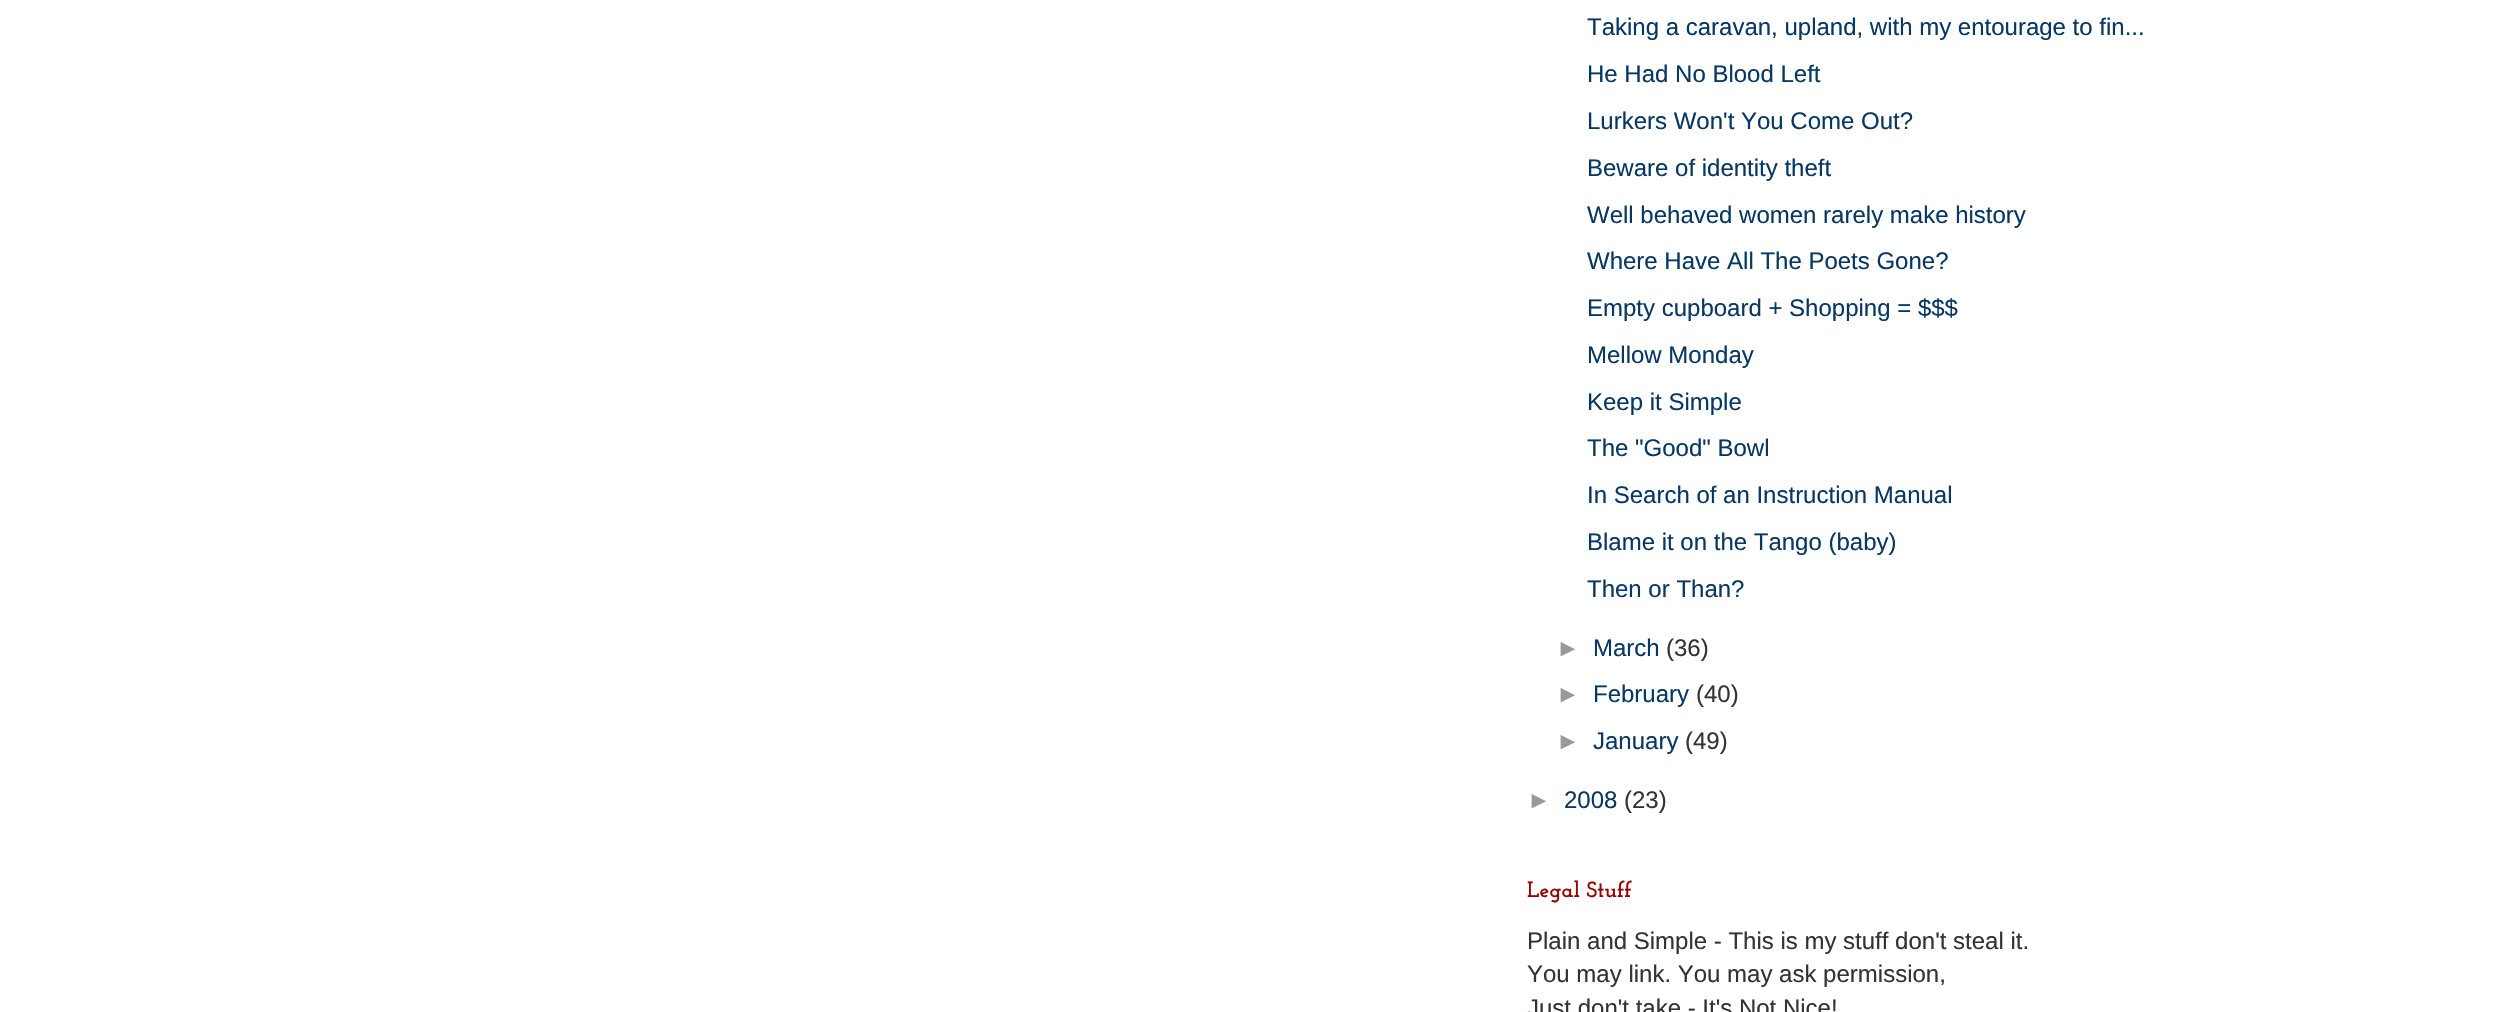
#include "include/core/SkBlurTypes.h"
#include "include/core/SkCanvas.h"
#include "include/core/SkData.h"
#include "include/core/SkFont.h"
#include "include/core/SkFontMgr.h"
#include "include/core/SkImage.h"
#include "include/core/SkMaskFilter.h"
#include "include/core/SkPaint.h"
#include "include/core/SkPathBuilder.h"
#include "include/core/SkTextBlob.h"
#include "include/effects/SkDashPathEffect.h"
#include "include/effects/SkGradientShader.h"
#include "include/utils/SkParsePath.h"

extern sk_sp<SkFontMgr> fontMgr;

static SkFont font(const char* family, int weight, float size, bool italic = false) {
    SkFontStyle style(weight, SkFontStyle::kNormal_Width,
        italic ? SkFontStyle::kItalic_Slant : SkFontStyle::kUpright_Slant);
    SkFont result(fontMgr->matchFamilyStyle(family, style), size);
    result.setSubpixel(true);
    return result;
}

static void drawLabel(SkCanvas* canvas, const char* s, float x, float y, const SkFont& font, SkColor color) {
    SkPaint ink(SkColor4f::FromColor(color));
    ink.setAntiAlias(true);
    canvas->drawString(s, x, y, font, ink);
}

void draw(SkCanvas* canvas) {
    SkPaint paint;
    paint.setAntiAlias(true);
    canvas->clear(0xFFFFFFFF);
    SkFont font1 = font("Liberation Sans", 400, 24);
    drawLabel(canvas, "Taking a caravan, upland, with my entourage to fin...", 1587, 35, font1, 0xFF073763);
    drawLabel(canvas, "He Had No Blood Left", 1587, 82, font1, 0xFF073763);
    drawLabel(canvas, "Lurkers Won't You Come Out?", 1587, 129, font1, 0xFF073763);
    drawLabel(canvas, "Beware of identity theft", 1587, 176, font1, 0xFF073763);
    drawLabel(canvas, "Well behaved women rarely make history", 1587, 223, font1, 0xFF073763);
    drawLabel(canvas, "Where Have All The Poets Gone?", 1587, 269, font1, 0xFF073763);
    drawLabel(canvas, "Empty cupboard + Shopping = $$$", 1587, 316, font1, 0xFF073763);
    drawLabel(canvas, "Mellow Monday", 1587, 363, font1, 0xFF073763);
    drawLabel(canvas, "Keep it Simple", 1587, 410, font1, 0xFF073763);
    drawLabel(canvas, "The \"Good\" Bowl", 1587, 456, font1, 0xFF073763);
    drawLabel(canvas, "In Search of an Instruction Manual", 1587, 503, font1, 0xFF073763);
    drawLabel(canvas, "Blame it on the Tango (baby)", 1587, 550, font1, 0xFF073763);
    drawLabel(canvas, "Then or Than?", 1587, 597, font1, 0xFF073763);
    drawLabel(canvas, "►", 1556, 656, font1, 0xFF999999);
    drawLabel(canvas, "March", 1593, 656, font1, 0xFF073763);
    drawLabel(canvas, "(36)", 1666, 656, font1, 0xFF333333);
    drawLabel(canvas, "►", 1556, 702, font1, 0xFF999999);
    drawLabel(canvas, "February", 1593, 702, font1, 0xFF073763);
    drawLabel(canvas, "(40)", 1696, 702, font1, 0xFF333333);
    drawLabel(canvas, "►", 1556, 749, font1, 0xFF999999);
    drawLabel(canvas, "January", 1593, 749, font1, 0xFF073763);
    drawLabel(canvas, "(49)", 1685, 749, font1, 0xFF333333);
    drawLabel(canvas, "►", 1527, 808, font1, 0xFF999999);
    drawLabel(canvas, "2008", 1564, 808, font1, 0xFF073763);
    drawLabel(canvas, "(23)", 1624, 808, font1, 0xFF333333);
    SkFont font2 = font("Josefin Slab", 100, 22);
    drawLabel(canvas, "Legal Stuff", 1527, 897, font2, 0xFF990000);
    drawLabel(canvas, "Plain and Simple - This is my stuff don't steal it.", 1527, 949, font1, 0xFF333333);
    drawLabel(canvas, "You may link. You may ask permission,", 1527, 982, font1, 0xFF333333);
    drawLabel(canvas, "Just don't take - It's Not Nice!", 1527, 1016, font1, 0xFF333333);
}
